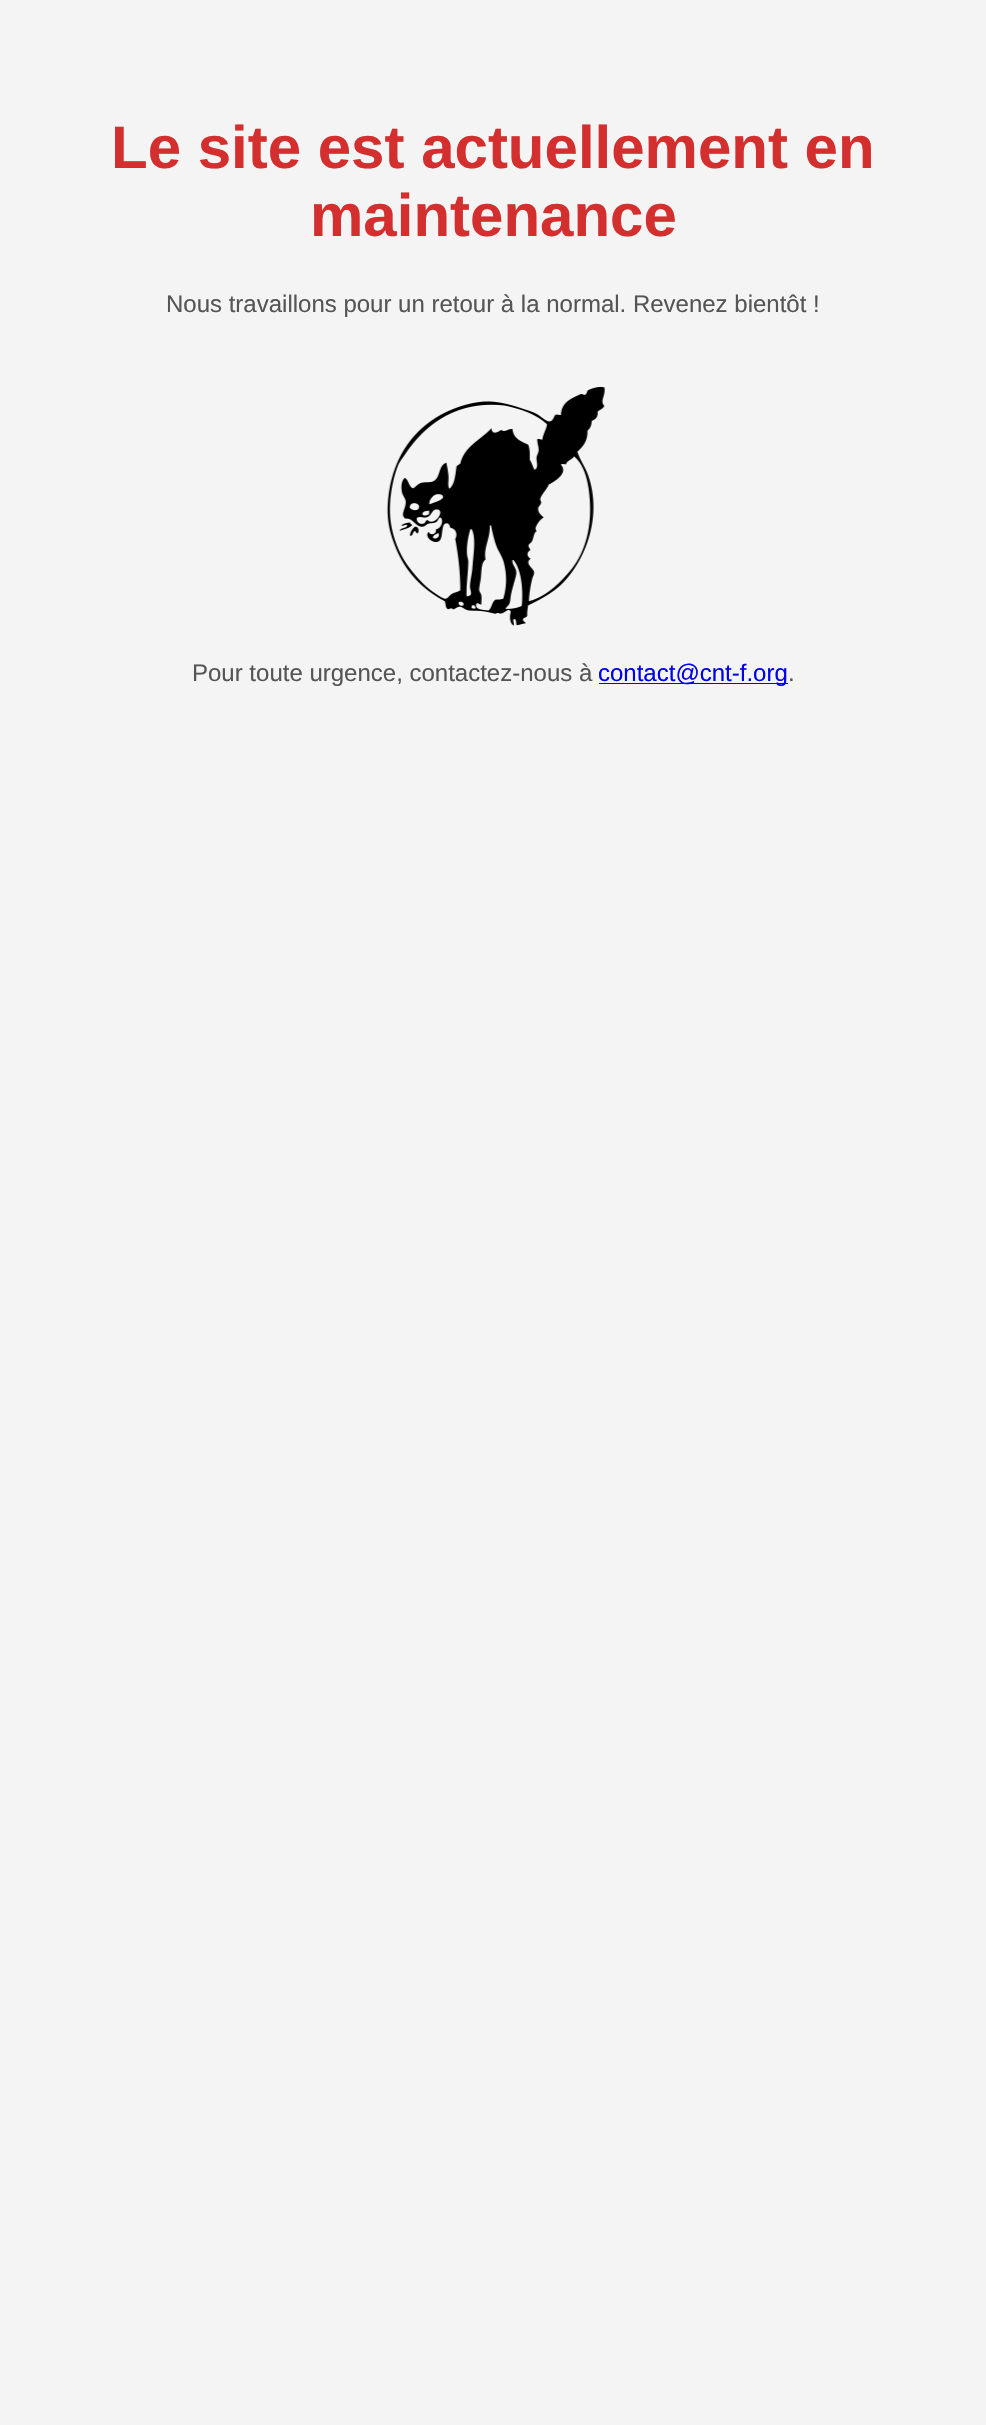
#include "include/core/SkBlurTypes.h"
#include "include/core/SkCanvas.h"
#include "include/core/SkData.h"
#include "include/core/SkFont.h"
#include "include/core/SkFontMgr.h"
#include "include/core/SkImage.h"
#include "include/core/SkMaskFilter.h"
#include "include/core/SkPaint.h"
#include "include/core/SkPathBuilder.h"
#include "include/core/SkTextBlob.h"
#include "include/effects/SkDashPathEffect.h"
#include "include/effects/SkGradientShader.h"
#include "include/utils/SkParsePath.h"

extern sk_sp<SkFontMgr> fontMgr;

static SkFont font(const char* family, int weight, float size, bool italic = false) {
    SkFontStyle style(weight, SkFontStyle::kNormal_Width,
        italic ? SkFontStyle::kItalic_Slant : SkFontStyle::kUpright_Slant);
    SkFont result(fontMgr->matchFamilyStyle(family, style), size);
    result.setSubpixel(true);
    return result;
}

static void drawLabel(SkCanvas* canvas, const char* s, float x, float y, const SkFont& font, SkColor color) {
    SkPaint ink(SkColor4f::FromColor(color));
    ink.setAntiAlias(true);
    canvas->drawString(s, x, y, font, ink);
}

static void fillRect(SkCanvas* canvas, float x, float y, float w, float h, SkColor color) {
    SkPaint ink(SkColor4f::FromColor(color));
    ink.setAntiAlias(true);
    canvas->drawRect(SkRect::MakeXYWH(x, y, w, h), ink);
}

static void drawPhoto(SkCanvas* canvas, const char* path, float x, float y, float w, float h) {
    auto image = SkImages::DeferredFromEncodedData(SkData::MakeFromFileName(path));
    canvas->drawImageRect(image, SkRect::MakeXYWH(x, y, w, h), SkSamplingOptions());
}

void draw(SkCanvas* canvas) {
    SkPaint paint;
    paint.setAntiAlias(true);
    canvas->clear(0xFFF4F4F4);
    SkFont font1 = font("Liberation Sans", 700, 60);
    drawLabel(canvas, "Le site est actuellement en", 111, 168, font1, 0xFFD32F2F);
    drawLabel(canvas, "maintenance", 310, 236, font1, 0xFFD32F2F);
    SkFont font2 = font("Liberation Sans", 400, 24);
    drawLabel(canvas, "Nous travaillons pour un retour à la normal. Revenez bientôt !", 166, 312, font2, 0xFF555555);
    drawPhoto(canvas, "assets/img1.png", 386, 386, 219, 240);
    drawLabel(canvas, "Pour toute urgence, contactez-nous à", 192, 681, font2, 0xFF555555);
    fillRect(canvas, 599, 683, 189, 1, 0xFF0000EE);
    drawLabel(canvas, "contact@cnt-f.org", 598, 681, font2, 0xFF0000EE);
    drawLabel(canvas, ".", 788, 681, font2, 0xFF555555);
}
